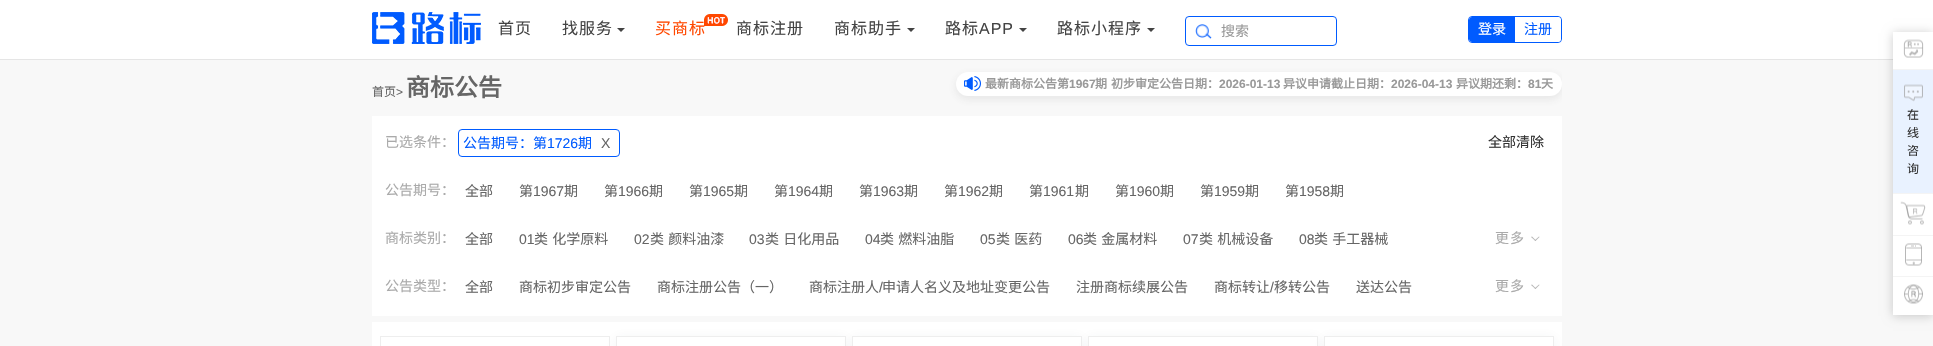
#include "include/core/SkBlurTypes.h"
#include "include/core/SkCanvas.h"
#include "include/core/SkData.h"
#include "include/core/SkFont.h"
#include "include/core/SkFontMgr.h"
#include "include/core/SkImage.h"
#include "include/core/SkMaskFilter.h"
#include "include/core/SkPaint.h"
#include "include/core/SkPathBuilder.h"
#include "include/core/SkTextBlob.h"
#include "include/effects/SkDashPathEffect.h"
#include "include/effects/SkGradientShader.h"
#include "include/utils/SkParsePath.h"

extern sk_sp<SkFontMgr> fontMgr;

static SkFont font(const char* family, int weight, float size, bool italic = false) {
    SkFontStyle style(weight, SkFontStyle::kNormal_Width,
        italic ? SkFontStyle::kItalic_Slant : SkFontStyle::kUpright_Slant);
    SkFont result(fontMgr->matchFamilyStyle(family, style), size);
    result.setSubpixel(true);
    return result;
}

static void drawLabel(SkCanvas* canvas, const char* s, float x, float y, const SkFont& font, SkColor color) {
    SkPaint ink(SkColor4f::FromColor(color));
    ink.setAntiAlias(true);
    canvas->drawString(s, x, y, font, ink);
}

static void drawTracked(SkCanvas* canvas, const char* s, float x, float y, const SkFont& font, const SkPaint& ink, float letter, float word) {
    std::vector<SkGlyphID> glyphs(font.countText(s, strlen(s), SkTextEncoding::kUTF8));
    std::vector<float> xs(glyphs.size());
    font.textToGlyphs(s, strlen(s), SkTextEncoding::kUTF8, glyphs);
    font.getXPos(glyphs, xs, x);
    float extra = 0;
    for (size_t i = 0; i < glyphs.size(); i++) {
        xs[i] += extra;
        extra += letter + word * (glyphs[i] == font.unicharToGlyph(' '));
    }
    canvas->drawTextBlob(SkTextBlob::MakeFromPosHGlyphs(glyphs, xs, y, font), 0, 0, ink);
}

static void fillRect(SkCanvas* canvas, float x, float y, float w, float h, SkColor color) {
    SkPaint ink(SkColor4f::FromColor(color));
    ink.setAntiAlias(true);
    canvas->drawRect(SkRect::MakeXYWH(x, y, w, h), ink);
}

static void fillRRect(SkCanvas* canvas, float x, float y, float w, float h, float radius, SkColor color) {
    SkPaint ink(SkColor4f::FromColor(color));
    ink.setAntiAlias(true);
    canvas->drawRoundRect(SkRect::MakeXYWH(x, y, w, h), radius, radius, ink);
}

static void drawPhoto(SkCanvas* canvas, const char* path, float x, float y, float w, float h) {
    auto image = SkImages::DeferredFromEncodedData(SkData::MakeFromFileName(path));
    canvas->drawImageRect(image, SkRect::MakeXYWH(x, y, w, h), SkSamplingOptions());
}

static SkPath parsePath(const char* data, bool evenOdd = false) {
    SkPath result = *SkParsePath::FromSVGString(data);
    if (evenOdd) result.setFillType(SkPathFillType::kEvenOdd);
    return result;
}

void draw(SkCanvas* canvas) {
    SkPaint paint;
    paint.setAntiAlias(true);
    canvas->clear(0xFFFFFFFF);
    fillRect(canvas, 0, 59, 1893, 1, 0xFFE5E5E5);
    drawPhoto(canvas, "assets/img1.png", 372, 12, 109, 32);
    SkFont font1 = font("Noto Sans CJK SC", 400, 16);
    paint.setColor(0xFF434343);
    drawTracked(canvas, "首页", 498, 34, font1, paint, 1, 0);
    drawTracked(canvas, "找服务", 562, 34, font1, paint, 1, 0);
    canvas->drawPath(parsePath("M617 28H625L621 32Z"), paint);
    paint.setColor(0xFFFF4800);
    drawTracked(canvas, "买商标", 655, 34, font1, paint, 1, 0);
    drawPhoto(canvas, "assets/img2.png", 704, 14, 24, 12);
    paint.setColor(0xFF434343);
    drawTracked(canvas, "商标注册", 736, 34, font1, paint, 1, 0);
    drawTracked(canvas, "商标助手", 834, 34, font1, paint, 1, 0);
    canvas->drawPath(parsePath("M907 28H915L911 32Z"), paint);
    drawTracked(canvas, "路标", 945, 34, font1, paint, 1, 0);
    SkFont font2 = font("Liberation Sans", 400, 16);
    drawTracked(canvas, "APP", 979, 34, font2, paint, 1, 0);
    canvas->drawPath(parsePath("M1019 28H1027L1023 32Z"), paint);
    drawTracked(canvas, "路标小程序", 1057, 34, font1, paint, 1, 0);
    canvas->drawPath(parsePath("M1147 28H1155L1151 32Z"), paint);
    paint.setStroke(true);
    paint.setStrokeWidth(1);
    paint.setColor(0xFF005BFF);
    canvas->drawRoundRect(SkRect::MakeXYWH(1185.5f, 16.5f, 151, 29), 3.5f, 3.5f, paint);
    drawPhoto(canvas, "assets/img3.png", 1195, 24, 17, 15);
    SkFont font3 = font("Noto Sans CJK SC", 400, 14);
    drawLabel(canvas, "搜索", 1221, 36, font3, 0xFF999999);
    canvas->drawRoundRect(SkRect::MakeXYWH(1468.5f, 16.5f, 93, 26), 3.5f, 3.5f, paint);
    paint.setStroke(false);
    canvas->drawPath(parsePath("M1472 17H1515V42H1472C1470.5 42 1469 40.5 1469 39V20C1469 18.5 1470.5 17 1472 17Z"), paint);
    drawLabel(canvas, "登录", 1478, 34, font3, 0xFFFFFFFF);
    paint.setColor(0xFFFFFFFF);
    canvas->drawPath(parsePath("M1515 17H1558C1559.5 17 1561 18.5 1561 20V39C1561 40.5 1559.5 42 1558 42H1515Z"), paint);
    drawLabel(canvas, "注册", 1524, 34, font3, 0xFF005BFF);
    fillRect(canvas, 0, 60, 1933, 286, 0xFFF8F8F8);
    SkFont font4 = font("Noto Sans CJK SC", 400, 12);
    drawLabel(canvas, "首页", 372, 96, font4, 0xFF666666);
    SkFont font5 = font("Liberation Sans", 400, 12);
    drawLabel(canvas, ">", 396, 96, font5, 0xFF666666);
    SkFont font6 = font("Noto Sans CJK SC", 700, 24);
    drawLabel(canvas, "商标公告", 406, 96, font6, 0xFF666666);
    canvas->save();
    canvas->clipRect(SkRect::MakeXYWH(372, 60, 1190, 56));
    paint.setColor(0x1A474747);
    paint.setMaskFilter(SkMaskFilter::MakeBlur(kNormal_SkBlurStyle, 4.5f));
    canvas->drawRoundRect(SkRect::MakeXYWH(956, 75, 606, 24), 12, 12, paint);
    paint.setMaskFilter(nullptr);
    canvas->restore();
    fillRRect(canvas, 956, 72, 606, 24, 12, 0xFFFFFFFF);
    drawPhoto(canvas, "assets/img4.png", 964, 76, 17, 15);
    SkFont font7 = font("Noto Sans CJK SC", 700, 12);
    drawLabel(canvas, "最新商标公告第", 985, 88, font7, 0xFF999999);
    SkFont font8 = font("Liberation Sans", 700, 12);
    drawLabel(canvas, "1967", 1069, 88, font8, 0xFF999999);
    drawLabel(canvas, "期", 1095, 88, font7, 0xFF999999);
    drawLabel(canvas, "初步审定公告日期：", 1111, 88, font7, 0xFF999999);
    drawLabel(canvas, "2026-01-13", 1219, 88, font8, 0xFF999999);
    drawLabel(canvas, "异议申请截止日期：", 1283, 88, font7, 0xFF999999);
    drawLabel(canvas, "2026-04-13", 1391, 88, font8, 0xFF999999);
    drawLabel(canvas, "异议期还剩：", 1456, 88, font7, 0xFF999999);
    drawLabel(canvas, "81", 1528, 88, font8, 0xFF999999);
    drawLabel(canvas, "天", 1541, 88, font7, 0xFF999999);
    fillRect(canvas, 372, 116, 1190, 200, 0xFFFFFFFF);
    drawLabel(canvas, "已选条件：", 385, 147, font3, 0xFFAAAAAA);
    paint.setStroke(true);
    paint.setColor(0xFF005BFF);
    canvas->drawRoundRect(SkRect::MakeXYWH(458.5f, 129.5f, 161, 27), 3.5f, 3.5f, paint);
    drawLabel(canvas, "公告期号：第", 463, 148, font3, 0xFF005BFF);
    SkFont font9 = font("Liberation Sans", 400, 14);
    drawLabel(canvas, "1726", 547, 148, font9, 0xFF005BFF);
    drawLabel(canvas, "期", 578, 148, font3, 0xFF005BFF);
    drawLabel(canvas, "X", 601, 148, font9, 0xFF666666);
    drawLabel(canvas, "全部清除", 1488, 147, font3, 0xFF313131);
    drawLabel(canvas, "公告期号：", 385, 195, font3, 0xFFAAAAAA);
    drawLabel(canvas, "全部", 465, 196, font3, 0xFF666666);
    drawLabel(canvas, "第", 519, 196, font3, 0xFF666666);
    drawLabel(canvas, "1967", 533, 196, font9, 0xFF666666);
    drawLabel(canvas, "期", 564, 196, font3, 0xFF666666);
    drawLabel(canvas, "第", 604, 196, font3, 0xFF666666);
    drawLabel(canvas, "1966", 618, 196, font9, 0xFF666666);
    drawLabel(canvas, "期", 649, 196, font3, 0xFF666666);
    drawLabel(canvas, "第", 689, 196, font3, 0xFF666666);
    drawLabel(canvas, "1965", 703, 196, font9, 0xFF666666);
    drawLabel(canvas, "期", 734, 196, font3, 0xFF666666);
    drawLabel(canvas, "第", 774, 196, font3, 0xFF666666);
    drawLabel(canvas, "1964", 788, 196, font9, 0xFF666666);
    drawLabel(canvas, "期", 819, 196, font3, 0xFF666666);
    drawLabel(canvas, "第", 859, 196, font3, 0xFF666666);
    drawLabel(canvas, "1963", 873, 196, font9, 0xFF666666);
    drawLabel(canvas, "期", 904, 196, font3, 0xFF666666);
    drawLabel(canvas, "第", 944, 196, font3, 0xFF666666);
    drawLabel(canvas, "1962", 958, 196, font9, 0xFF666666);
    drawLabel(canvas, "期", 989, 196, font3, 0xFF666666);
    drawLabel(canvas, "第", 1029, 196, font3, 0xFF666666);
    drawLabel(canvas, "1961", 1043, 196, font9, 0xFF666666);
    drawLabel(canvas, "期", 1075, 196, font3, 0xFF666666);
    drawLabel(canvas, "第", 1115, 196, font3, 0xFF666666);
    drawLabel(canvas, "1960", 1129, 196, font9, 0xFF666666);
    drawLabel(canvas, "期", 1160, 196, font3, 0xFF666666);
    drawLabel(canvas, "第", 1200, 196, font3, 0xFF666666);
    drawLabel(canvas, "1959", 1214, 196, font9, 0xFF666666);
    drawLabel(canvas, "期", 1245, 196, font3, 0xFF666666);
    drawLabel(canvas, "第", 1285, 196, font3, 0xFF666666);
    drawLabel(canvas, "1958", 1299, 196, font9, 0xFF666666);
    drawLabel(canvas, "期", 1330, 196, font3, 0xFF666666);
    drawLabel(canvas, "商标类别：", 385, 243, font3, 0xFFAAAAAA);
    drawLabel(canvas, "全部", 465, 244, font3, 0xFF666666);
    drawLabel(canvas, "01", 519, 244, font9, 0xFF666666);
    paint.setStroke(false);
    paint.setColor(0xFF666666);
    drawTracked(canvas, "类 化学原料", 534, 244, font3, paint, 0, 1);
    drawLabel(canvas, "02", 634, 244, font9, 0xFF666666);
    drawTracked(canvas, "类 颜料油漆", 650, 244, font3, paint, 0, 1);
    drawLabel(canvas, "03", 749, 244, font9, 0xFF666666);
    drawTracked(canvas, "类 日化用品", 765, 244, font3, paint, 0, 1);
    drawLabel(canvas, "04", 865, 244, font9, 0xFF666666);
    drawTracked(canvas, "类 燃料油脂", 880, 244, font3, paint, 0, 1);
    drawLabel(canvas, "05", 980, 244, font9, 0xFF666666);
    drawTracked(canvas, "类 医药", 996, 244, font3, paint, 0, 1);
    drawLabel(canvas, "06", 1068, 244, font9, 0xFF666666);
    drawTracked(canvas, "类 金属材料", 1083, 244, font3, paint, 0, 1);
    drawLabel(canvas, "07", 1183, 244, font9, 0xFF666666);
    drawTracked(canvas, "类 机械设备", 1199, 244, font3, paint, 0, 1);
    drawLabel(canvas, "08", 1299, 244, font9, 0xFF666666);
    drawTracked(canvas, "类 手工器械", 1314, 244, font3, paint, 0, 1);
    paint.setColor(0xFFAAAAAA);
    drawTracked(canvas, "更多", 1495, 243, font3, paint, 1, 0);
    paint.setColor(0xFFB5B5B5);
    canvas->drawPath(parsePath("M1535.5 241L1531 237L1532 236.5L1536 240.5Z"), paint);
    canvas->drawPath(parsePath("M1535.5 241L1534.5 240.5L1539 236.5L1539.5 237Z"), paint);
    drawLabel(canvas, "公告类型：", 385, 291, font3, 0xFFAAAAAA);
    drawLabel(canvas, "全部", 465, 292, font3, 0xFF666666);
    drawLabel(canvas, "商标初步审定公告", 519, 292, font3, 0xFF666666);
    drawLabel(canvas, "商标注册公告（一）", 657, 292, font3, 0xFF666666);
    drawLabel(canvas, "商标注册人", 809, 292, font3, 0xFF666666);
    drawLabel(canvas, "/", 879, 292, font9, 0xFF666666);
    drawLabel(canvas, "申请人名义及地址变更公告", 882, 292, font3, 0xFF666666);
    drawLabel(canvas, "注册商标续展公告", 1076, 292, font3, 0xFF666666);
    drawLabel(canvas, "商标转让", 1214, 292, font3, 0xFF666666);
    drawLabel(canvas, "/", 1270, 292, font9, 0xFF666666);
    drawLabel(canvas, "移转公告", 1274, 292, font3, 0xFF666666);
    drawLabel(canvas, "送达公告", 1356, 292, font3, 0xFF666666);
    paint.setColor(0xFFAAAAAA);
    drawTracked(canvas, "更多", 1495, 291, font3, paint, 1, 0);
    paint.setColor(0xFFB5B5B5);
    canvas->drawPath(parsePath("M1535.5 289L1531 285L1532 284.5L1536 288.5Z"), paint);
    canvas->drawPath(parsePath("M1535.5 289L1534.5 288.5L1539 284.5L1539.5 285Z"), paint);
    fillRect(canvas, 372, 322, 1190, 24, 0xFFFFFFFF);
    paint.setStroke(true);
    paint.setColor(0xFFEEEEEE);
    canvas->drawRect(SkRect::MakeXYWH(380.5f, 336.5f, 229, 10), paint);
    paint.setStroke(false);
    paint.setColor(0x0F333F4D);
    paint.setMaskFilter(SkMaskFilter::MakeBlur(kNormal_SkBlurStyle, 6.5f));
    canvas->drawRect(SkRect::MakeXYWH(616, 338, 230, 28), paint);
    paint.setMaskFilter(nullptr);
    paint.setColor(0xFFFFFFFF);
    canvas->drawRect(SkRect::MakeXYWH(616.5f, 336.5f, 229, 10), paint);
    paint.setStroke(true);
    paint.setColor(0xFFEEEEEE);
    canvas->drawRect(SkRect::MakeXYWH(616.5f, 336.5f, 229, 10), paint);
    paint.setStroke(false);
    paint.setColor(0x0F333F4D);
    paint.setMaskFilter(SkMaskFilter::MakeBlur(kNormal_SkBlurStyle, 6.5f));
    canvas->drawRect(SkRect::MakeXYWH(852, 338, 230, 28), paint);
    paint.setMaskFilter(nullptr);
    paint.setColor(0xFFFFFFFF);
    canvas->drawRect(SkRect::MakeXYWH(852.5f, 336.5f, 229, 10), paint);
    paint.setStroke(true);
    paint.setColor(0xFFEEEEEE);
    canvas->drawRect(SkRect::MakeXYWH(852.5f, 336.5f, 229, 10), paint);
    paint.setStroke(false);
    paint.setColor(0x0F333F4D);
    paint.setMaskFilter(SkMaskFilter::MakeBlur(kNormal_SkBlurStyle, 6.5f));
    canvas->drawRect(SkRect::MakeXYWH(1088, 338, 230, 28), paint);
    paint.setMaskFilter(nullptr);
    paint.setColor(0xFFFFFFFF);
    canvas->drawRect(SkRect::MakeXYWH(1088.5f, 336.5f, 229, 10), paint);
    paint.setStroke(true);
    paint.setColor(0xFFEEEEEE);
    canvas->drawRect(SkRect::MakeXYWH(1088.5f, 336.5f, 229, 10), paint);
    paint.setStroke(false);
    paint.setColor(0x0F333F4D);
    paint.setMaskFilter(SkMaskFilter::MakeBlur(kNormal_SkBlurStyle, 6.5f));
    canvas->drawRect(SkRect::MakeXYWH(1324, 338, 230, 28), paint);
    paint.setMaskFilter(nullptr);
    paint.setColor(0xFFFFFFFF);
    canvas->drawRect(SkRect::MakeXYWH(1324.5f, 336.5f, 229, 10), paint);
    paint.setStroke(true);
    paint.setColor(0xFFEEEEEE);
    canvas->drawRect(SkRect::MakeXYWH(1324.5f, 336.5f, 229, 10), paint);
    paint.setStroke(false);
    paint.setColor(0x33000000);
    paint.setMaskFilter(SkMaskFilter::MakeBlur(kNormal_SkBlurStyle, 5));
    canvas->drawRect(SkRect::MakeXYWH(1893, 33, 40, 283), paint);
    paint.setMaskFilter(nullptr);
    fillRect(canvas, 1893, 32, 40, 37, 0xFFFFFFFF);
    drawPhoto(canvas, "assets/img5.png", 1903, 39, 21, 19);
    fillRect(canvas, 1893, 70, 40, 123, 0xFFE9F2FF);
    fillRect(canvas, 1893, 69, 40, 1, 0xFFF4F4F4);
    drawPhoto(canvas, "assets/img6.png", 1904, 84, 19, 18);
    drawLabel(canvas, "在", 1907, 119, font4, 0xFF313131);
    drawLabel(canvas, "线", 1907, 137, font4, 0xFF313131);
    drawLabel(canvas, "咨", 1907, 155, font4, 0xFF313131);
    drawLabel(canvas, "询", 1907, 173, font4, 0xFF313131);
    fillRect(canvas, 1893, 194, 40, 41, 0xFFFFFFFF);
    fillRect(canvas, 1893, 193, 40, 1, 0xFFF4F4F4);
    drawPhoto(canvas, "assets/img7.png", 1900, 201, 26, 24);
    fillRect(canvas, 1893, 236, 40, 40, 0xFFFFFFFF);
    fillRect(canvas, 1893, 235, 40, 1, 0xFFF4F4F4);
    drawPhoto(canvas, "assets/img8.png", 1905, 243, 17, 23);
    fillRect(canvas, 1893, 277, 40, 38, 0xFFFFFFFF);
    fillRect(canvas, 1893, 276, 40, 1, 0xFFF4F4F4);
    drawPhoto(canvas, "assets/img9.png", 1904, 284, 19, 20);
}
